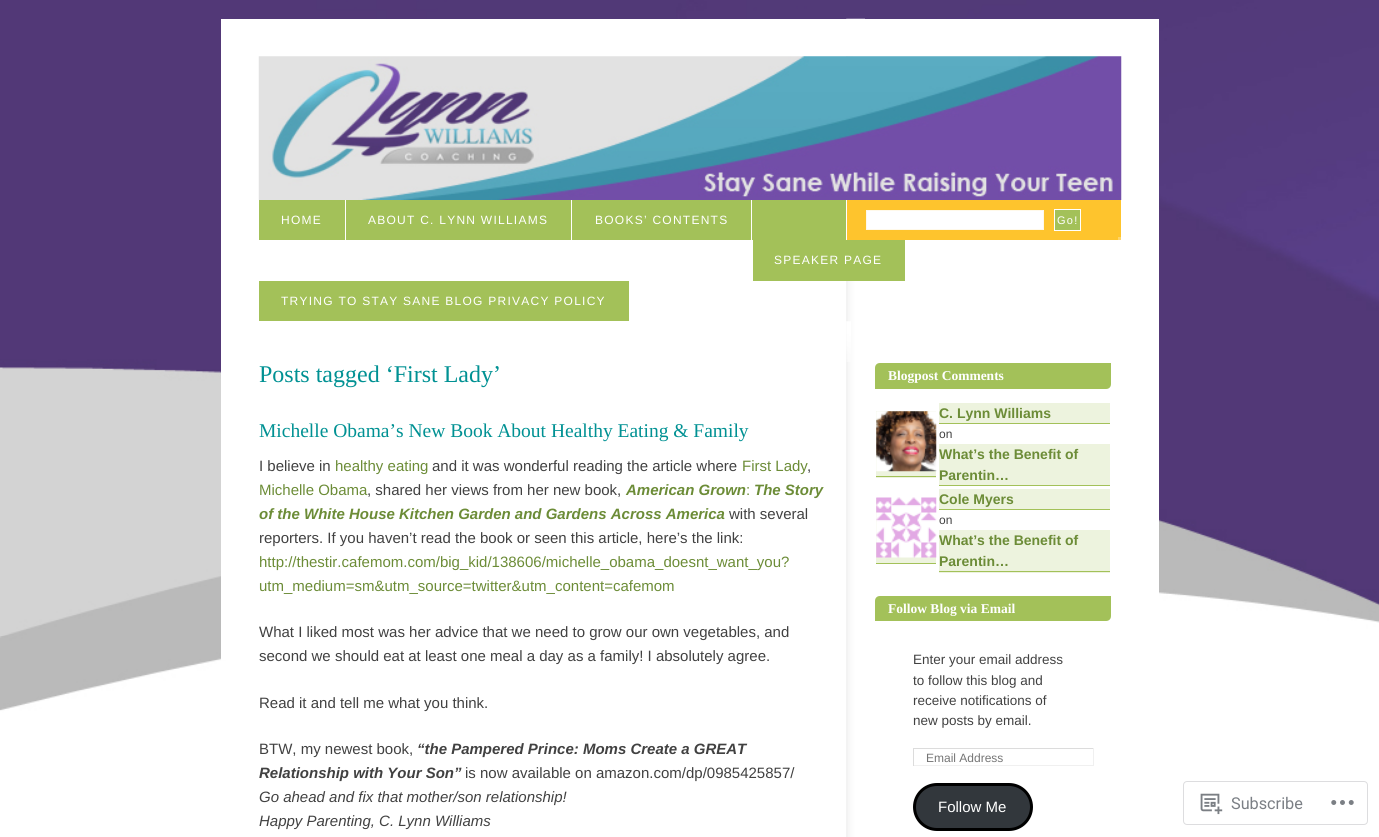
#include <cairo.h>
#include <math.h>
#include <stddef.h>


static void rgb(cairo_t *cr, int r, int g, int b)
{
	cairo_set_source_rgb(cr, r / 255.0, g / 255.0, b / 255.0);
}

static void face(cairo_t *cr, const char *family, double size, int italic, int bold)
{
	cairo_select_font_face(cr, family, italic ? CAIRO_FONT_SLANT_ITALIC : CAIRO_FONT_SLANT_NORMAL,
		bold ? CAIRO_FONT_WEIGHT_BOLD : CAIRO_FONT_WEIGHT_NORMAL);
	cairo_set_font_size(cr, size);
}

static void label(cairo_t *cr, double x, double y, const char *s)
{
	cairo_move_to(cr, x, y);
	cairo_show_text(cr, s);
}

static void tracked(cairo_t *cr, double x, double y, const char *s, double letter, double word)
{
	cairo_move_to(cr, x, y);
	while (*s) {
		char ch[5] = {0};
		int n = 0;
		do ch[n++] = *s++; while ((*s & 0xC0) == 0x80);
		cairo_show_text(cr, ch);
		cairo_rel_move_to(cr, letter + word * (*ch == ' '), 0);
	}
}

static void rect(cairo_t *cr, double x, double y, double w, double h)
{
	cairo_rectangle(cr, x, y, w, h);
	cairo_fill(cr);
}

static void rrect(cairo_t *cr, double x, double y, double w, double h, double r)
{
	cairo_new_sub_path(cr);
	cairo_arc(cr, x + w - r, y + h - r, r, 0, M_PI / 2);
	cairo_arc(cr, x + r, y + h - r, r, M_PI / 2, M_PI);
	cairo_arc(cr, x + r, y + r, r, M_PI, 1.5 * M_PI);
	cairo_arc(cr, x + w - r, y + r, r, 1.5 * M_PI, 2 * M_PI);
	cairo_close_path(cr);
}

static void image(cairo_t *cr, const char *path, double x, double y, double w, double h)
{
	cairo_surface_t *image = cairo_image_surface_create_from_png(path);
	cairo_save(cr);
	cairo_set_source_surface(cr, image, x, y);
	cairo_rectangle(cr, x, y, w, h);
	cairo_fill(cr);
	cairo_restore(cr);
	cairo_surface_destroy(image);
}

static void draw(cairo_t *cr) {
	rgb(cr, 255, 255, 255);
	cairo_paint(cr);
	image(cr, "image0.png", 0, 0, 1379, 837);
	rgb(cr, 255, 255, 255);
	rect(cr, 221, 56, 938, 604);
	image(cr, "image1.png", 846, 18, 19, 819);
	rect(cr, 221, 19, 938, 37);
	image(cr, "image2.png", 258, 56, 864, 144);
	rgb(cr, 163, 193, 89);
	rect(cr, 259, 200, 587, 40);
	rgb(cr, 255, 255, 255);
	rect(cr, 345, 200, 1, 40);
	face(cr, "Liberation Sans", 12, 0, 0);
	tracked(cr, 281, 224, "HOME", 1.25, 0);
	rect(cr, 571, 200, 1, 40);
	tracked(cr, 368, 224, "ABOUT C. LYNN WILLIAMS", 1.25, 0);
	rect(cr, 751, 200, 1, 40);
	tracked(cr, 595, 224, "BOOKS’ CONTENTS", 1.25, 0);
	rgb(cr, 163, 193, 89);
	rect(cr, 753, 240, 152, 41);
	rgb(cr, 255, 255, 255);
	tracked(cr, 774, 264, "SPEAKER PAGE", 1.25, 0);
	rgb(cr, 163, 193, 89);
	rect(cr, 259, 281, 370, 40);
	rgb(cr, 255, 255, 255);
	tracked(cr, 281, 305, "TRYING TO STAY SANE BLOG PRIVACY POLICY", 1.25, 0);
	rgb(cr, 254, 196, 45);
	rect(cr, 847, 200, 274, 40);
	rgb(cr, 254, 213, 106);
	rect(cr, 1118, 237, 3, 3);
	rgb(cr, 255, 255, 255);
	rect(cr, 846, 200, 1, 40);
	cairo_rectangle(cr, 866.5, 210.5, 177, 19);
	cairo_fill_preserve(cr);
	rgb(cr, 255, 249, 234);
	cairo_set_line_width(cr, 1);
	cairo_stroke(cr);
	rgb(cr, 163, 193, 89);
	cairo_rectangle(cr, 1054.5, 209.5, 26, 21);
	cairo_fill_preserve(cr);
	rgb(cr, 255, 255, 255);
	cairo_stroke(cr);
	face(cr, "Liberation Sans", 11, 0, 0);
	tracked(cr, 1057, 224, "Go!", 1.25, 0);
	face(cr, "Liberation Serif", 24, 0, 0);
	rgb(cr, 0, 145, 147);
	label(cr, 259, 382, "Posts tagged ‘First Lady’");
	face(cr, "Liberation Serif", 19.5, 0, 0);
	label(cr, 259, 437, "Michelle Obama’s New Book About Healthy Eating & Family");
	face(cr, "Liberation Sans", 15, 0, 0);
	rgb(cr, 65, 65, 65);
	label(cr, 259, 471, "I believe in");
	rgb(cr, 108, 140, 55);
	label(cr, 335, 471, "healthy eating");
	rgb(cr, 65, 65, 65);
	label(cr, 432, 471, "and it was wonderful reading the article where");
	rgb(cr, 108, 140, 55);
	label(cr, 742, 471, "First Lady");
	rgb(cr, 65, 65, 65);
	label(cr, 807, 471, ",");
	rgb(cr, 108, 140, 55);
	label(cr, 259, 495, "Michelle Obama");
	rgb(cr, 65, 65, 65);
	label(cr, 367, 495, ", shared her views from her new book,");
	face(cr, "Liberation Sans", 15, 1, 1);
	rgb(cr, 108, 140, 55);
	label(cr, 626, 495, "American Grown");
	face(cr, "Liberation Sans", 15, 0, 0);
	label(cr, 746, 495, ":");
	face(cr, "Liberation Sans", 15, 1, 1);
	label(cr, 754, 495, "The Story");
	label(cr, 259, 519, "of the White House Kitchen Garden and Gardens Across America");
	face(cr, "Liberation Sans", 15, 0, 0);
	rgb(cr, 65, 65, 65);
	label(cr, 729, 519, "with several");
	label(cr, 259, 543, "reporters. If you haven’t read the book or seen this article, here’s the link:");
	rgb(cr, 108, 140, 55);
	label(cr, 259, 567, "http://thestir.cafemom.com/big_kid/138606/michelle_obama_doesnt_want_you?");
	label(cr, 259, 591, "utm_medium=sm&utm_source=twitter&utm_content=cafemom");
	rgb(cr, 65, 65, 65);
	label(cr, 259, 637, "What I liked most was her advice that we need to grow our own vegetables, and");
	label(cr, 259, 661, "second we should eat at least one meal a day as a family! I absolutely agree.");
	label(cr, 259, 708, "Read it and tell me what you think.");
	label(cr, 259, 754, "BTW, my newest book,");
	face(cr, "Liberation Sans", 15, 1, 1);
	label(cr, 417, 754, "“the Pampered Prince: Moms Create a GREAT");
	label(cr, 259, 778, "Relationship with Your Son”");
	face(cr, "Liberation Sans", 15, 0, 0);
	label(cr, 465, 778, "is now available on amazon.com/dp/0985425857/");
	face(cr, "Liberation Sans", 15, 1, 0);
	label(cr, 259, 802, "Go ahead and fix that mother/son relationship!");
	label(cr, 259, 826, "Happy Parenting, C. Lynn Williams");
	image(cr, "image3.png", 846, 321, 5, 41);
	rgb(cr, 163, 193, 89);
	cairo_new_path(cr);
	cairo_move_to(cr, 880, 363);
	cairo_line_to(cr, 1111, 363);
	cairo_line_to(cr, 1111, 384);
	cairo_curve_to(cr, 1111, 387, 1109, 389, 1106, 389);
	cairo_line_to(cr, 875, 389);
	cairo_line_to(cr, 875, 368);
	cairo_curve_to(cr, 875, 365, 877, 363, 880, 363);
	cairo_close_path(cr);
	cairo_fill(cr);
	face(cr, "Liberation Serif", 13.5, 0, 1);
	rgb(cr, 255, 255, 255);
	label(cr, 888, 380, "Blogpost Comments");
	rgb(cr, 237, 243, 222);
	rect(cr, 876, 411, 60, 67);
	rgb(cr, 163, 193, 89);
	rect(cr, 876, 476, 60, 1);
	image(cr, "image4.png", 876, 411, 61, 61);
	rgb(cr, 237, 243, 222);
	rect(cr, 939, 403, 171, 20);
	rgb(cr, 163, 193, 89);
	rect(cr, 939, 423, 171, 1);
	face(cr, "Liberation Sans", 14, 0, 1);
	rgb(cr, 108, 140, 55);
	label(cr, 939, 418, "C. Lynn Williams");
	face(cr, "Liberation Sans", 12, 0, 0);
	rgb(cr, 65, 65, 65);
	label(cr, 939, 438, "on");
	rgb(cr, 237, 243, 222);
	rect(cr, 939, 444, 171, 41);
	rgb(cr, 163, 193, 89);
	rect(cr, 939, 485, 171, 1);
	face(cr, "Liberation Sans", 14, 0, 1);
	rgb(cr, 108, 140, 55);
	label(cr, 939, 459, "What’s the Benefit of");
	label(cr, 939, 480, "Parentin…");
	rgb(cr, 237, 243, 222);
	rect(cr, 876, 498, 60, 65);
	rgb(cr, 163, 193, 89);
	rect(cr, 876, 563, 60, 1);
	image(cr, "image5.png", 876, 497, 61, 61);
	rgb(cr, 237, 243, 222);
	rect(cr, 939, 489, 171, 20);
	rgb(cr, 163, 193, 89);
	rect(cr, 939, 509, 171, 1);
	rgb(cr, 108, 140, 55);
	label(cr, 939, 504, "Cole Myers");
	face(cr, "Liberation Sans", 12, 0, 0);
	rgb(cr, 65, 65, 65);
	label(cr, 939, 524, "on");
	rgb(cr, 237, 243, 222);
	rect(cr, 939, 530, 171, 43);
	rgb(cr, 163, 193, 89);
	rect(cr, 939, 571, 171, 1);
	face(cr, "Liberation Sans", 14, 0, 1);
	rgb(cr, 108, 140, 55);
	label(cr, 939, 545, "What’s the Benefit of");
	label(cr, 939, 566, "Parentin…");
	rgb(cr, 163, 193, 89);
	cairo_new_path(cr);
	cairo_move_to(cr, 880, 596);
	cairo_line_to(cr, 1111, 596);
	cairo_line_to(cr, 1111, 616);
	cairo_curve_to(cr, 1111, 619, 1109, 621, 1106, 621);
	cairo_line_to(cr, 875, 621);
	cairo_line_to(cr, 875, 601);
	cairo_curve_to(cr, 875, 598, 877, 596, 880, 596);
	cairo_close_path(cr);
	cairo_fill(cr);
	face(cr, "Liberation Serif", 13.5, 0, 1);
	rgb(cr, 255, 255, 255);
	label(cr, 888, 613, "Follow Blog via Email");
	face(cr, "Liberation Sans", 13.5, 0, 0);
	rgb(cr, 65, 65, 65);
	label(cr, 913, 664, "Enter your email address");
	label(cr, 913, 685, "to follow this blog and");
	label(cr, 913, 705, "receive notifications of");
	label(cr, 913, 725, "new posts by email.");
	rgb(cr, 220, 220, 220);
	rect(cr, 913, 748, 181, 1);
	rgb(cr, 240, 240, 240);
	rect(cr, 1093, 748, 1, 18);
	rect(cr, 913, 765, 181, 1);
	rgb(cr, 220, 220, 220);
	rect(cr, 913, 748, 1, 18);
	face(cr, "Liberation Sans", 12, 0, 0);
	rgb(cr, 117, 117, 117);
	label(cr, 926, 762, "Email Address");
	rgb(cr, 50, 55, 60);
	rrect(cr, 914.5, 784.5, 117, 45, 22.5);
	cairo_fill_preserve(cr);
	rgb(cr, 0, 0, 0);
	cairo_set_line_width(cr, 3);
	cairo_stroke(cr);
	face(cr, "Liberation Sans", 15, 0, 0);
	rgb(cr, 255, 255, 255);
	label(cr, 938, 812, "Follow Me");
	rrect(cr, 1183.5, 781.5, 184, 43, 3.5);
	rgb(cr, 221, 221, 223);
	cairo_set_line_width(cr, 1);
	cairo_stroke(cr);
	image(cr, "image6.png", 1200, 793, 23, 22);
	face(cr, "Roboto", 16.25, 0, 0);
	rgb(cr, 123, 127, 133);
	label(cr, 1231, 809, "Subscribe");
	image(cr, "image7.png", 1331, 800, 23, 5);
}

int main(void) {
	cairo_surface_t *surface = cairo_image_surface_create(CAIRO_FORMAT_RGB24, 1379, 837);
	cairo_t *cr = cairo_create(surface);
	cairo_font_options_t *options = cairo_font_options_create();
	cairo_font_options_set_hint_metrics(options, CAIRO_HINT_METRICS_OFF);
	cairo_font_options_set_hint_style(options, CAIRO_HINT_STYLE_NONE);
	cairo_set_font_options(cr, options);
	cairo_set_miter_limit(cr, 4);
	draw(cr);
	cairo_surface_write_to_png(surface, "render.png");
	cairo_font_options_destroy(options);
	cairo_destroy(cr);
	cairo_surface_destroy(surface);
	return 0;
}
